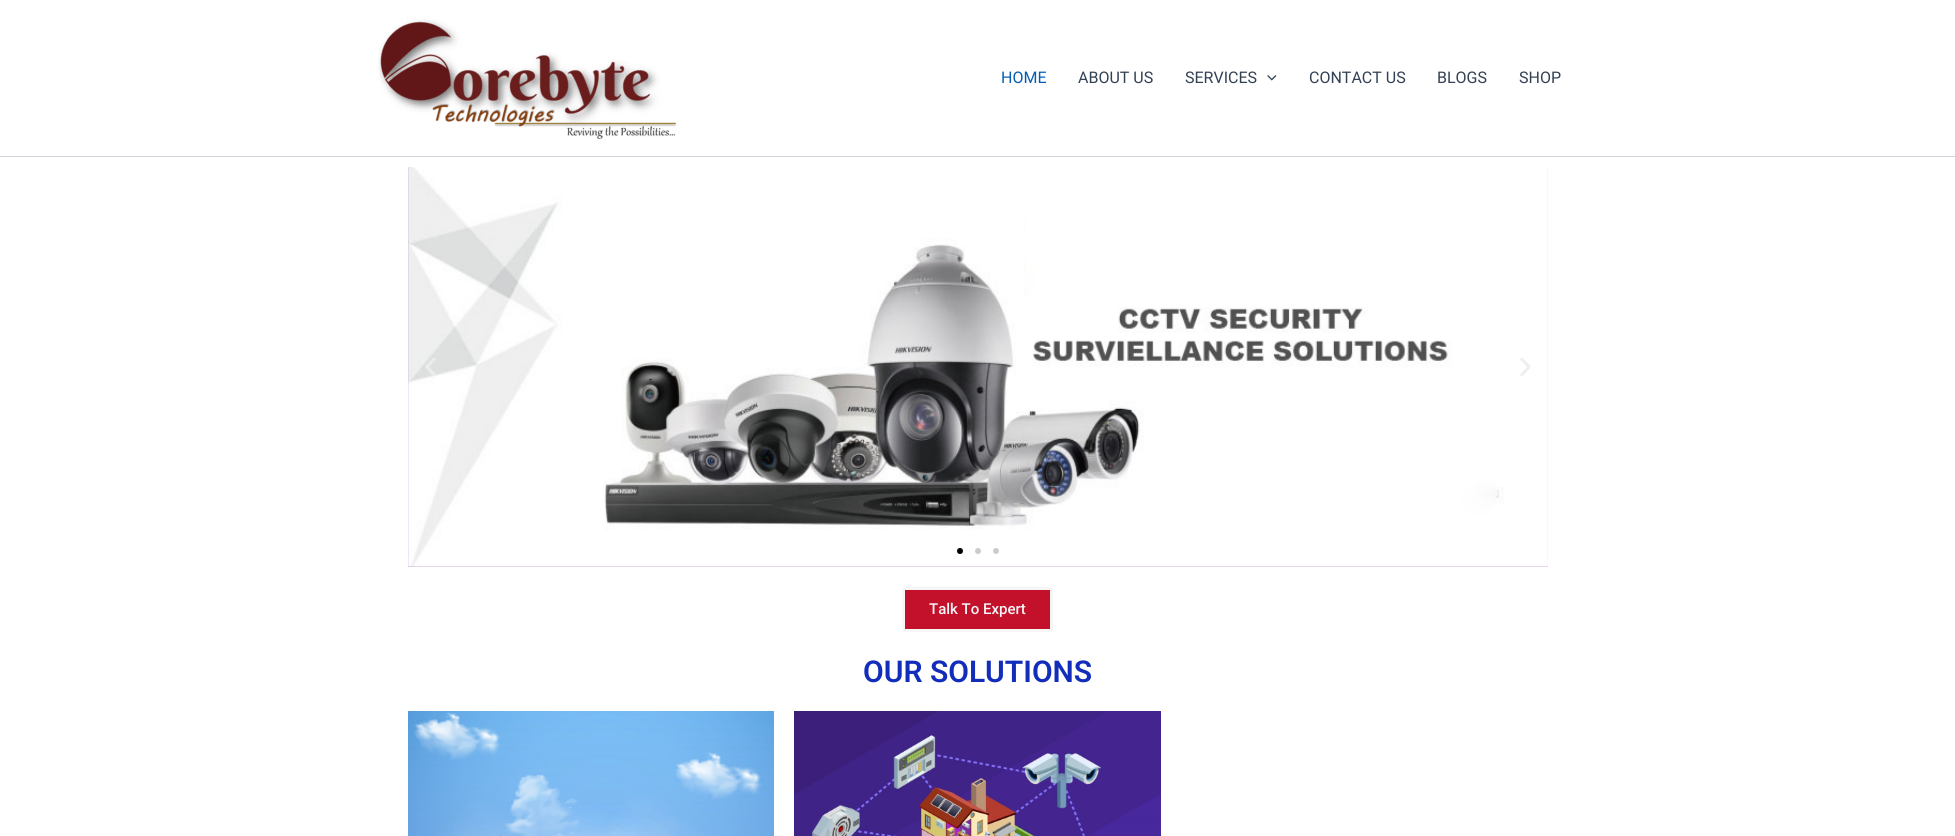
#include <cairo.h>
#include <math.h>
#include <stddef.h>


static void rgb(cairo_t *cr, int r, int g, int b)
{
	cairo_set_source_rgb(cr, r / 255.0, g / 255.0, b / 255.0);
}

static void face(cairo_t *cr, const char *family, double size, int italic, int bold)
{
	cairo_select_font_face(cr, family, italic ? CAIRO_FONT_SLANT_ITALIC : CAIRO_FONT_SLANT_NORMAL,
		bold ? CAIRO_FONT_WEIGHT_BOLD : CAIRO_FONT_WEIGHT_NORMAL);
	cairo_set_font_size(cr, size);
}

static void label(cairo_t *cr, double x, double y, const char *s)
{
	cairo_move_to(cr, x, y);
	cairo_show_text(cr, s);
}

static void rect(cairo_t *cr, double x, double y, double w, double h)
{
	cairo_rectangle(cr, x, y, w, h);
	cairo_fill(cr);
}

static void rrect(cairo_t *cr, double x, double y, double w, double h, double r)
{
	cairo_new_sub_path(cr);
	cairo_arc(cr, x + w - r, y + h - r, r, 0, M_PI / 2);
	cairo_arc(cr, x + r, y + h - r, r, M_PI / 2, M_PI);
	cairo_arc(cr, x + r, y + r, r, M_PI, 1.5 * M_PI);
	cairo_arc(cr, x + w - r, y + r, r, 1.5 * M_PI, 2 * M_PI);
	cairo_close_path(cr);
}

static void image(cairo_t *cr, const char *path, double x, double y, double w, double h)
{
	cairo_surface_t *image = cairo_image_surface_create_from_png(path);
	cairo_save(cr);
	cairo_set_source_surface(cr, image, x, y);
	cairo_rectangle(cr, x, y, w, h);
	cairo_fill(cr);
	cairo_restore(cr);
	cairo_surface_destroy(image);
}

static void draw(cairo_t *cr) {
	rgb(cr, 255, 255, 255);
	cairo_paint(cr);
	rgb(cr, 209, 213, 219);
	rect(cr, 0, 156, 1955, 1);
	image(cr, "image0.png", 378, 19, 299, 121);
	face(cr, "Roboto", 16, 0, 0);
	rgb(cr, 4, 92, 180);
	label(cr, 1001, 83, "HOME");
	rgb(cr, 51, 65, 85);
	label(cr, 1078, 83, "ABOUT US");
	label(cr, 1185, 83, "SERVICES");
	image(cr, "image1.png", 1267, 75, 10, 6);
	label(cr, 1309, 83, "CONTACT US");
	label(cr, 1437, 83, "BLOGS");
	label(cr, 1519, 83, "SHOP");
	rgb(cr, 131, 60, 163);
	rect(cr, 408, 167, 1140, 400);
	image(cr, "image2.png", 408, 167, 1140, 400);
	image(cr, "image3.png", 425, 358, 11, 19);
	image(cr, "image4.png", 1520, 357, 11, 20);
	rgb(cr, 0, 0, 0);
	cairo_arc(cr, 960, 551, 3, 0, 2 * M_PI);
	cairo_fill(cr);
	rgb(cr, 204, 204, 204);
	cairo_arc(cr, 978, 551, 3, 0, 2 * M_PI);
	cairo_fill(cr);
	cairo_arc(cr, 996, 551, 3, 0, 2 * M_PI);
	cairo_fill(cr);
	rgb(cr, 196, 17, 43);
	rrect(cr, 903.5, 588.5, 148, 42, 1.5);
	cairo_fill_preserve(cr);
	rgb(cr, 247, 246, 246);
	cairo_set_line_width(cr, 3);
	cairo_stroke(cr);
	face(cr, "Roboto Medium", 15, 0, 0);
	label(cr, 929, 614, "Talk To Expert");
	face(cr, "Roboto SemiBold", 30, 0, 0);
	rgb(cr, 19, 45, 187);
	label(cr, 863, 682, "OUR SOLUTIONS");
	image(cr, "image5.png", 408, 711, 366, 125);
	image(cr, "image6.png", 794, 711, 367, 125);
}

int main(void) {
	cairo_surface_t *surface = cairo_image_surface_create(CAIRO_FORMAT_RGB24, 1955, 836);
	cairo_t *cr = cairo_create(surface);
	cairo_font_options_t *options = cairo_font_options_create();
	cairo_font_options_set_hint_metrics(options, CAIRO_HINT_METRICS_OFF);
	cairo_font_options_set_hint_style(options, CAIRO_HINT_STYLE_NONE);
	cairo_set_font_options(cr, options);
	cairo_set_miter_limit(cr, 4);
	draw(cr);
	cairo_surface_write_to_png(surface, "render.png");
	cairo_font_options_destroy(options);
	cairo_destroy(cr);
	cairo_surface_destroy(surface);
	return 0;
}
